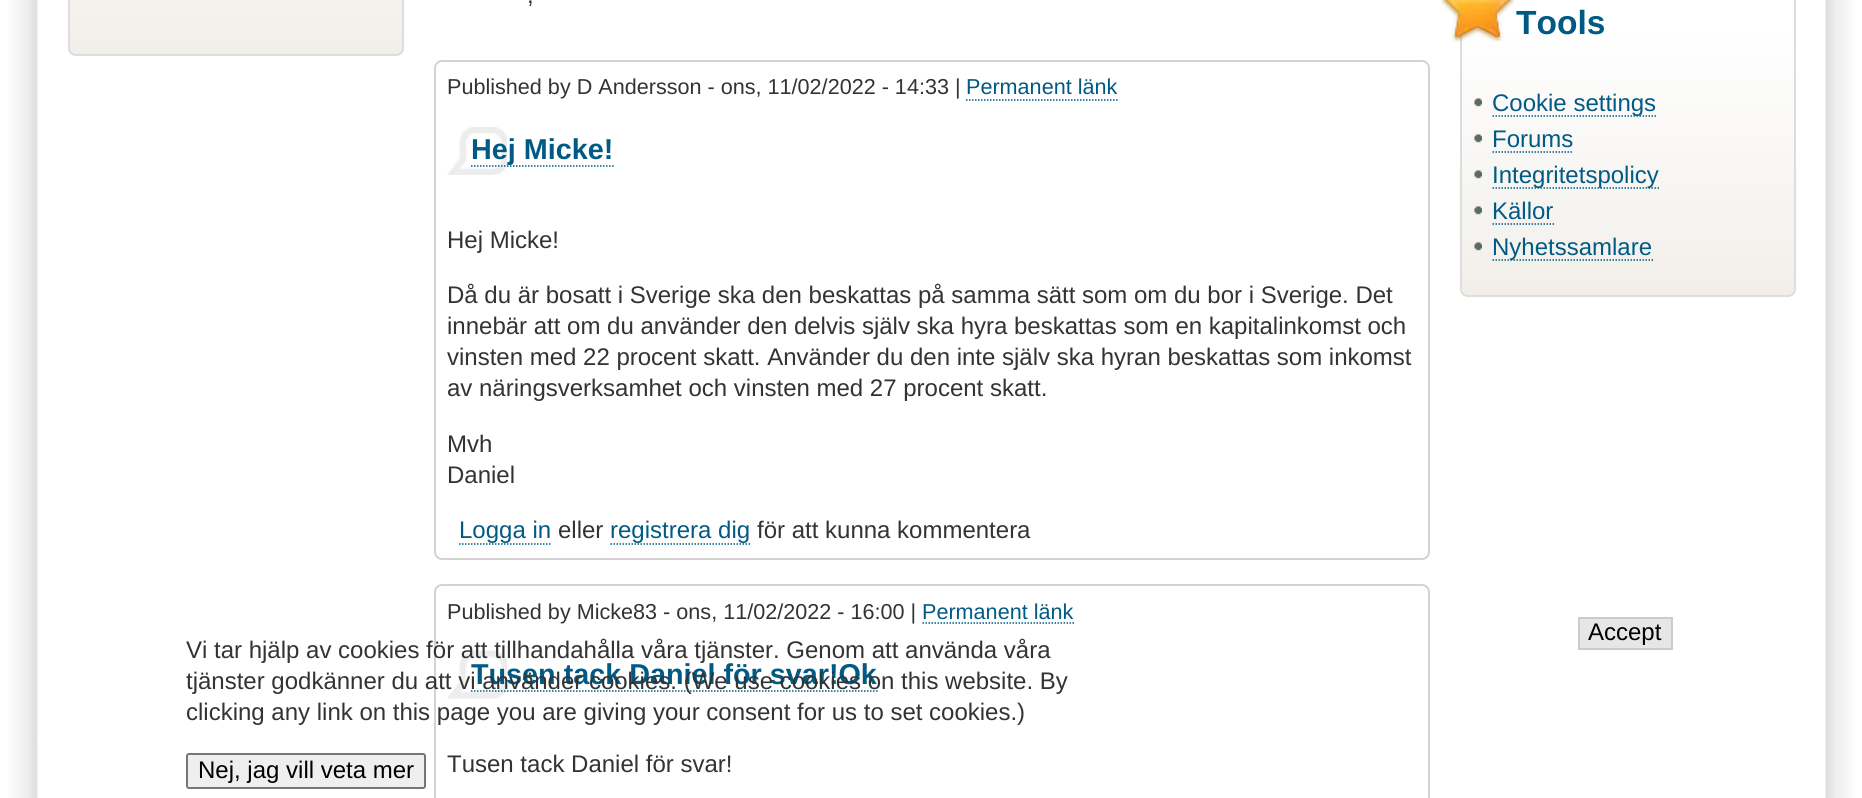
#include <cairo.h>
#include <math.h>
#include <stddef.h>


static void rgb(cairo_t *cr, int r, int g, int b)
{
	cairo_set_source_rgb(cr, r / 255.0, g / 255.0, b / 255.0);
}

static void face(cairo_t *cr, const char *family, double size, int italic, int bold)
{
	cairo_select_font_face(cr, family, italic ? CAIRO_FONT_SLANT_ITALIC : CAIRO_FONT_SLANT_NORMAL,
		bold ? CAIRO_FONT_WEIGHT_BOLD : CAIRO_FONT_WEIGHT_NORMAL);
	cairo_set_font_size(cr, size);
}

static void label(cairo_t *cr, double x, double y, const char *s)
{
	cairo_move_to(cr, x, y);
	cairo_show_text(cr, s);
}

static void rect(cairo_t *cr, double x, double y, double w, double h)
{
	cairo_rectangle(cr, x, y, w, h);
	cairo_fill(cr);
}

static void rrect(cairo_t *cr, double x, double y, double w, double h, double r)
{
	cairo_new_sub_path(cr);
	cairo_arc(cr, x + w - r, y + h - r, r, 0, M_PI / 2);
	cairo_arc(cr, x + r, y + h - r, r, M_PI / 2, M_PI);
	cairo_arc(cr, x + r, y + r, r, M_PI, 1.5 * M_PI);
	cairo_arc(cr, x + w - r, y + r, r, 1.5 * M_PI, 2 * M_PI);
	cairo_close_path(cr);
}

static void image(cairo_t *cr, const char *path, double x, double y, double w, double h)
{
	cairo_surface_t *image = cairo_image_surface_create_from_png(path);
	cairo_save(cr);
	cairo_set_source_surface(cr, image, x, y);
	cairo_rectangle(cr, x, y, w, h);
	cairo_fill(cr);
	cairo_restore(cr);
	cairo_surface_destroy(image);
}

static void draw(cairo_t *cr) {
	cairo_pattern_t *gradient;
	rgb(cr, 255, 255, 255);
	cairo_paint(cr);
	image(cr, "image0.png", 8, 0, 30, 798);
	image(cr, "image1.png", 1825, 0, 30, 798);
	cairo_save(cr);
	rrect(cr, 68, -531, 336, 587, 8);
	cairo_clip(cr);
	gradient = cairo_pattern_create_linear(236, 54, 236, -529);
	cairo_pattern_add_color_stop_rgba(gradient, 0, 0.949, 0.937, 0.918, 1);
	cairo_pattern_add_color_stop_rgba(gradient, 0.46, 1, 1, 1, 1);
	cairo_set_source(cr, gradient);
	cairo_pattern_destroy(gradient);
	rect(cr, 68, 0, 336, 54);
	cairo_restore(cr);
	rrect(cr, 69, -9, 334, 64, 7);
	rgb(cr, 221, 221, 221);
	cairo_stroke(cr);
	face(cr, "Liberation Sans", 24, 0, 0);
	rgb(cr, 51, 51, 51);
	label(cr, 527, 3, ",");
	rrect(cr, 435, 61, 994, 498, 7);
	rgb(cr, 211, 211, 211);
	cairo_stroke(cr);
	face(cr, "Liberation Sans", 21.6, 0, 0);
	rgb(cr, 51, 51, 51);
	label(cr, 447, 94, "Published by D Andersson - ons, 11/02/2022 - 14:33 |");
	rgb(cr, 0, 90, 132);
	label(cr, 966, 94, "Permanent länk");
	cairo_new_path(cr);
	cairo_move_to(cr, 966, 100);
	cairo_line_to(cr, 1117.5, 100);
	cairo_set_line_width(cr, 1.5);
	cairo_set_dash(cr, (double[]){1.5, 1.5}, 2, 0);
	cairo_stroke(cr);
	image(cr, "image2.png", 447, 127, 60, 48);
	face(cr, "Liberation Sans", 28.75, 0, 1);
	label(cr, 471, 159, "Hej Micke!");
	cairo_new_path(cr);
	cairo_move_to(cr, 471, 166);
	cairo_line_to(cr, 613.5, 166);
	cairo_stroke(cr);
	face(cr, "Liberation Sans", 24, 0, 0);
	rgb(cr, 51, 51, 51);
	label(cr, 447, 248, "Hej Micke!");
	label(cr, 447, 303, "Då du är bosatt i Sverige ska den beskattas på samma sätt som om du bor i Sverige. Det");
	label(cr, 447, 334, "innebär att om du använder den delvis själv ska hyra beskattas som en kapitalinkomst och");
	label(cr, 447, 365, "vinsten med 22 procent skatt. Använder du den inte själv ska hyran beskattas som inkomst");
	label(cr, 447, 396, "av näringsverksamhet och vinsten med 27 procent skatt.");
	label(cr, 447, 452, "Mvh");
	label(cr, 447, 483, "Daniel");
	rgb(cr, 0, 90, 132);
	label(cr, 459, 538, "Logga in");
	cairo_new_path(cr);
	cairo_move_to(cr, 459, 544);
	cairo_line_to(cr, 552, 544);
	cairo_stroke(cr);
	rgb(cr, 51, 51, 51);
	label(cr, 558, 538, "eller");
	rgb(cr, 0, 90, 132);
	label(cr, 610, 538, "registrera dig");
	cairo_new_path(cr);
	cairo_move_to(cr, 610.5, 544);
	cairo_line_to(cr, 750, 544);
	cairo_stroke(cr);
	rgb(cr, 51, 51, 51);
	label(cr, 757, 538, "för att kunna kommentera");
	rrect(cr, 435, 585, 994, 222, 7);
	rgb(cr, 211, 211, 211);
	cairo_set_line_width(cr, 2);
	cairo_set_dash(cr, NULL, 0, 0);
	cairo_stroke(cr);
	face(cr, "Liberation Sans", 21.6, 0, 0);
	rgb(cr, 51, 51, 51);
	label(cr, 447, 619, "Published by Micke83 - ons, 11/02/2022 - 16:00 |");
	rgb(cr, 0, 90, 132);
	label(cr, 922, 619, "Permanent länk");
	cairo_new_path(cr);
	cairo_move_to(cr, 922.5, 623);
	cairo_line_to(cr, 1074, 623);
	cairo_set_line_width(cr, 1.5);
	cairo_set_dash(cr, (double[]){1.5, 1.5}, 2, 0);
	cairo_stroke(cr);
	image(cr, "image3.png", 447, 650, 60, 49);
	face(cr, "Liberation Sans", 28.75, 0, 1);
	label(cr, 471, 684, "Tusen tack Daniel för svar!Ok");
	cairo_new_path(cr);
	cairo_move_to(cr, 471, 691);
	cairo_line_to(cr, 877.5, 691);
	cairo_stroke(cr);
	face(cr, "Liberation Sans", 24, 0, 0);
	rgb(cr, 51, 51, 51);
	label(cr, 447, 772, "Tusen tack Daniel för svar!");
	cairo_save(cr);
	rrect(cr, 1460, -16, 336, 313, 8);
	cairo_clip(cr);
	gradient = cairo_pattern_create_linear(1628, 296, 1628, -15);
	cairo_pattern_add_color_stop_rgba(gradient, 0, 0.949, 0.937, 0.918, 1);
	cairo_pattern_add_color_stop_rgba(gradient, 0.87, 1, 1, 1, 1);
	cairo_set_source(cr, gradient);
	cairo_pattern_destroy(gradient);
	rect(cr, 1460, 0, 336, 296);
	cairo_restore(cr);
	rrect(cr, 1461, -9, 334, 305, 7);
	rgb(cr, 221, 221, 221);
	cairo_set_line_width(cr, 2);
	cairo_set_dash(cr, NULL, 0, 0);
	cairo_stroke(cr);
	image(cr, "image4.png", 1441, 0, 73, 42);
	face(cr, "Liberation Sans", 33.5, 0, 1);
	rgb(cr, 0, 90, 132);
	label(cr, 1516, 34, "Tools");
	image(cr, "image5.png", 1474, 98, 8, 9);
	cairo_new_path(cr);
	cairo_move_to(cr, 1492.5, 116);
	cairo_line_to(cr, 1656, 116);
	cairo_set_line_width(cr, 1.5);
	cairo_set_dash(cr, (double[]){1.5, 1.5}, 2, 0);
	cairo_stroke(cr);
	face(cr, "Liberation Sans", 24, 0, 0);
	label(cr, 1492, 111, "Cookie settings");
	image(cr, "image6.png", 1474, 134, 8, 9);
	label(cr, 1492, 147, "Forums");
	cairo_new_path(cr);
	cairo_move_to(cr, 1492.5, 152);
	cairo_line_to(cr, 1573.5, 152);
	cairo_stroke(cr);
	image(cr, "image7.png", 1474, 170, 8, 9);
	cairo_new_path(cr);
	cairo_move_to(cr, 1492.5, 188);
	cairo_line_to(cr, 1659, 188);
	cairo_stroke(cr);
	label(cr, 1492, 183, "Integritetspolicy");
	image(cr, "image8.png", 1474, 206, 8, 9);
	label(cr, 1492, 219, "Källor");
	cairo_new_path(cr);
	cairo_move_to(cr, 1492.5, 224);
	cairo_line_to(cr, 1554, 224);
	cairo_stroke(cr);
	image(cr, "image9.png", 1474, 242, 8, 9);
	cairo_new_path(cr);
	cairo_move_to(cr, 1492.5, 260);
	cairo_line_to(cr, 1653, 260);
	cairo_stroke(cr);
	label(cr, 1492, 255, "Nyhetssamlare");
	rgb(cr, 230, 230, 230);
	cairo_rectangle(cr, 1579, 618, 93, 31);
	cairo_fill_preserve(cr);
	rgb(cr, 204, 204, 204);
	cairo_set_line_width(cr, 2);
	cairo_set_dash(cr, NULL, 0, 0);
	cairo_stroke(cr);
	rgb(cr, 0, 0, 0);
	label(cr, 1588, 640, "Accept");
	rgb(cr, 51, 51, 51);
	label(cr, 186, 658, "Vi tar hjälp av cookies för att tillhandahålla våra tjänster. Genom att använda våra");
	label(cr, 186, 689, "tjänster godkänner du att vi använder cookies. (We use cookies on this website. By");
	label(cr, 186, 720, "clicking any link on this page you are giving your consent for us to set cookies.)");
	rgb(cr, 239, 239, 239);
	rrect(cr, 187, 754, 238, 34, 2);
	cairo_fill_preserve(cr);
	rgb(cr, 118, 118, 118);
	cairo_stroke(cr);
	rgb(cr, 0, 0, 0);
	label(cr, 198, 778, "Nej, jag vill veta mer");
}

int main(void) {
	cairo_surface_t *surface = cairo_image_surface_create(CAIRO_FORMAT_RGB24, 1862, 798);
	cairo_t *cr = cairo_create(surface);
	cairo_font_options_t *options = cairo_font_options_create();
	cairo_font_options_set_hint_metrics(options, CAIRO_HINT_METRICS_OFF);
	cairo_font_options_set_hint_style(options, CAIRO_HINT_STYLE_NONE);
	cairo_set_font_options(cr, options);
	cairo_set_miter_limit(cr, 4);
	draw(cr);
	cairo_surface_write_to_png(surface, "render.png");
	cairo_font_options_destroy(options);
	cairo_destroy(cr);
	cairo_surface_destroy(surface);
	return 0;
}
